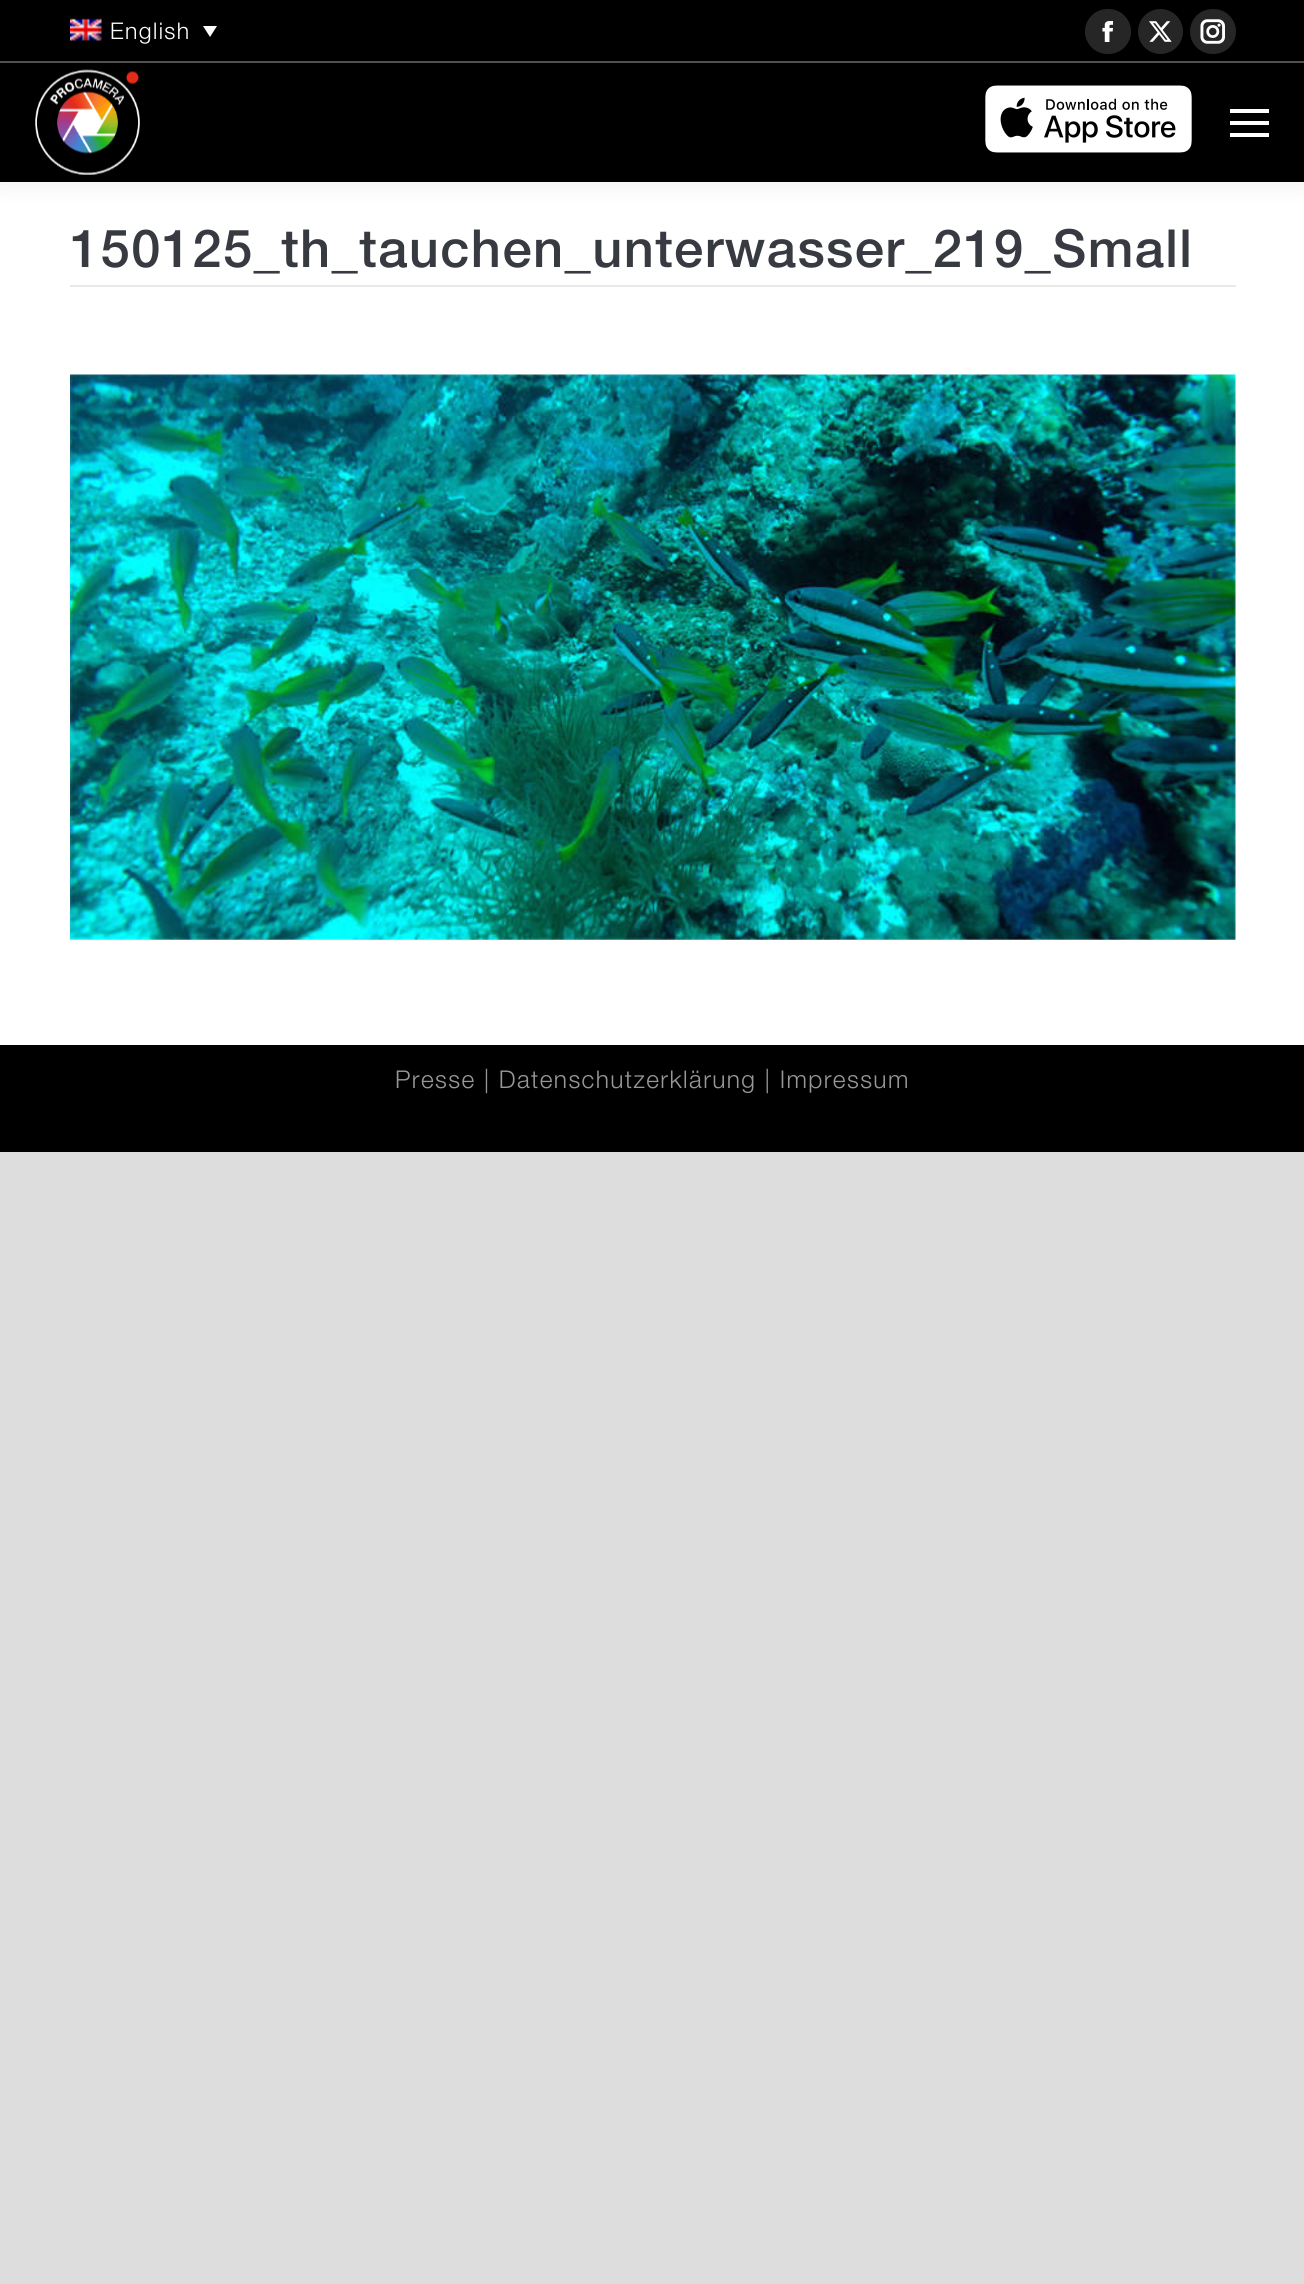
#include <cairo.h>
#include <math.h>
#include <stddef.h>


static void rgb(cairo_t *cr, int r, int g, int b)
{
	cairo_set_source_rgb(cr, r / 255.0, g / 255.0, b / 255.0);
}

static void face(cairo_t *cr, const char *family, double size, int italic, int bold)
{
	cairo_select_font_face(cr, family, italic ? CAIRO_FONT_SLANT_ITALIC : CAIRO_FONT_SLANT_NORMAL,
		bold ? CAIRO_FONT_WEIGHT_BOLD : CAIRO_FONT_WEIGHT_NORMAL);
	cairo_set_font_size(cr, size);
}

static void tracked(cairo_t *cr, double x, double y, const char *s, double letter, double word)
{
	cairo_move_to(cr, x, y);
	while (*s) {
		char ch[5] = {0};
		int n = 0;
		do ch[n++] = *s++; while ((*s & 0xC0) == 0x80);
		cairo_show_text(cr, ch);
		cairo_rel_move_to(cr, letter + word * (*ch == ' '), 0);
	}
}

static void rect(cairo_t *cr, double x, double y, double w, double h)
{
	cairo_rectangle(cr, x, y, w, h);
	cairo_fill(cr);
}

static void rrect(cairo_t *cr, double x, double y, double w, double h, double r)
{
	cairo_new_sub_path(cr);
	cairo_arc(cr, x + w - r, y + h - r, r, 0, M_PI / 2);
	cairo_arc(cr, x + r, y + h - r, r, M_PI / 2, M_PI);
	cairo_arc(cr, x + r, y + r, r, M_PI, 1.5 * M_PI);
	cairo_arc(cr, x + w - r, y + r, r, 1.5 * M_PI, 2 * M_PI);
	cairo_close_path(cr);
}

static void soft_shadow(cairo_t *cr, double x, double y, double w, double h, double r, double blur, double alpha)
{
	cairo_push_group_with_content(cr, CAIRO_CONTENT_ALPHA);
	cairo_set_operator(cr, CAIRO_OPERATOR_SOURCE);
	for (int i = 15; i >= -15 && fmin(w, h) + blur * i / 3 > 0; i -= 2) {
		double e = blur * i / 6;
		cairo_set_source_rgba(cr, 0, 0, 0, alpha * erfc((i - 1) / 8.5) / 2);
		rrect(cr, x - e, y - e, w + 2 * e, h + 2 * e, fmax(0, fmin(r + e + blur * .6, fmin(w, h) / 2 + e)));
		cairo_fill(cr);
	}
	cairo_pattern_t *soft = cairo_pop_group(cr);
	cairo_mask(cr, soft);
	cairo_pattern_destroy(soft);
}

static void image(cairo_t *cr, const char *path, double x, double y, double w, double h)
{
	cairo_surface_t *image = cairo_image_surface_create_from_png(path);
	cairo_save(cr);
	cairo_set_source_surface(cr, image, x, y);
	cairo_rectangle(cr, x, y, w, h);
	cairo_fill(cr);
	cairo_restore(cr);
	cairo_surface_destroy(image);
}

static void draw(cairo_t *cr) {
	rgb(cr, 221, 221, 221);
	cairo_paint(cr);
	rgb(cr, 255, 255, 255);
	rect(cr, 0, 182, 1304, 863);
	rgb(cr, 0, 0, 0);
	soft_shadow(cr, -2, -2, 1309, 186, 0, 13, 0.07);
	rgb(cr, 0, 0, 0);
	rect(cr, 0, 0, 1304, 182);
	image(cr, "image0.png", 70, 18, 32, 23);
	face(cr, "Helvetica Light", 23, 0, 0);
	rgb(cr, 255, 255, 255);
	tracked(cr, 110, 39, "English", 1.4, 0);
	cairo_new_path(cr);
	cairo_move_to(cr, 203, 26);
	cairo_line_to(cr, 217, 26);
	cairo_line_to(cr, 210, 37);
	cairo_close_path(cr);
	cairo_fill(cr);
	rgb(cr, 38, 38, 38);
	rrect(cr, 1085, 9, 46, 45, 22.5);
	cairo_fill(cr);
	image(cr, "image1.png", 1102, 21, 12, 21);
	cairo_arc(cr, 1160.5, 31.5, 22.5, 0, 2 * M_PI);
	cairo_fill(cr);
	image(cr, "image2.png", 1149, 21, 23, 21);
	rrect(cr, 1190, 9, 46, 45, 22.5);
	cairo_fill(cr);
	image(cr, "image3.png", 1200, 19, 25, 25);
	rgb(cr, 81, 81, 81);
	rect(cr, 0, 61, 1304, 2);
	image(cr, "image4.png", 35, 69, 105, 106);
	image(cr, "image5.png", 985, 85, 207, 68);
	rgb(cr, 255, 255, 255);
	rect(cr, 1230, 109, 39, 4);
	rect(cr, 1230, 121, 39, 4);
	rect(cr, 1230, 133, 39, 4);
	face(cr, "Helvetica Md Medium", 52.5, 0, 0);
	rgb(cr, 55, 58, 65);
	tracked(cr, 70, 267, "150125_th_tauchen_unterwasser_219_Small", 1.4, 0);
	rgb(cr, 233, 233, 233);
	rect(cr, 70, 285, 1166, 2);
	image(cr, "image6.png", 70, 374, 1166, 566);
	rgb(cr, 0, 0, 0);
	rect(cr, 0, 1045, 1304, 107);
	face(cr, "Helvetica Light", 24.5, 0, 0);
	rgb(cr, 150, 151, 152);
	tracked(cr, 395, 1088, "Presse | Datenschutzerklärung | Impressum", 1.4, 0);
}

int main(void) {
	cairo_surface_t *surface = cairo_image_surface_create(CAIRO_FORMAT_RGB24, 1304, 2284);
	cairo_t *cr = cairo_create(surface);
	cairo_font_options_t *options = cairo_font_options_create();
	cairo_font_options_set_hint_metrics(options, CAIRO_HINT_METRICS_OFF);
	cairo_font_options_set_hint_style(options, CAIRO_HINT_STYLE_NONE);
	cairo_set_font_options(cr, options);
	cairo_set_miter_limit(cr, 4);
	draw(cr);
	cairo_surface_write_to_png(surface, "render.png");
	cairo_font_options_destroy(options);
	cairo_destroy(cr);
	cairo_surface_destroy(surface);
	return 0;
}
